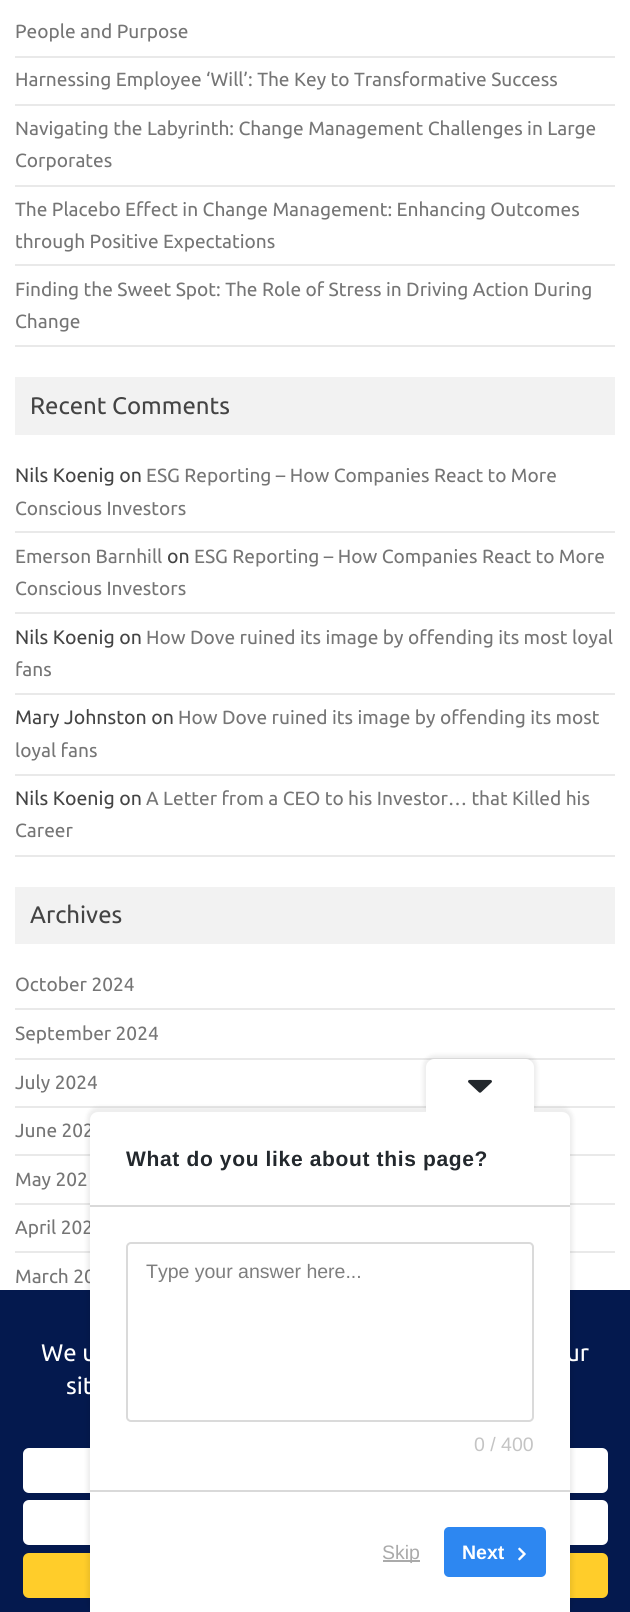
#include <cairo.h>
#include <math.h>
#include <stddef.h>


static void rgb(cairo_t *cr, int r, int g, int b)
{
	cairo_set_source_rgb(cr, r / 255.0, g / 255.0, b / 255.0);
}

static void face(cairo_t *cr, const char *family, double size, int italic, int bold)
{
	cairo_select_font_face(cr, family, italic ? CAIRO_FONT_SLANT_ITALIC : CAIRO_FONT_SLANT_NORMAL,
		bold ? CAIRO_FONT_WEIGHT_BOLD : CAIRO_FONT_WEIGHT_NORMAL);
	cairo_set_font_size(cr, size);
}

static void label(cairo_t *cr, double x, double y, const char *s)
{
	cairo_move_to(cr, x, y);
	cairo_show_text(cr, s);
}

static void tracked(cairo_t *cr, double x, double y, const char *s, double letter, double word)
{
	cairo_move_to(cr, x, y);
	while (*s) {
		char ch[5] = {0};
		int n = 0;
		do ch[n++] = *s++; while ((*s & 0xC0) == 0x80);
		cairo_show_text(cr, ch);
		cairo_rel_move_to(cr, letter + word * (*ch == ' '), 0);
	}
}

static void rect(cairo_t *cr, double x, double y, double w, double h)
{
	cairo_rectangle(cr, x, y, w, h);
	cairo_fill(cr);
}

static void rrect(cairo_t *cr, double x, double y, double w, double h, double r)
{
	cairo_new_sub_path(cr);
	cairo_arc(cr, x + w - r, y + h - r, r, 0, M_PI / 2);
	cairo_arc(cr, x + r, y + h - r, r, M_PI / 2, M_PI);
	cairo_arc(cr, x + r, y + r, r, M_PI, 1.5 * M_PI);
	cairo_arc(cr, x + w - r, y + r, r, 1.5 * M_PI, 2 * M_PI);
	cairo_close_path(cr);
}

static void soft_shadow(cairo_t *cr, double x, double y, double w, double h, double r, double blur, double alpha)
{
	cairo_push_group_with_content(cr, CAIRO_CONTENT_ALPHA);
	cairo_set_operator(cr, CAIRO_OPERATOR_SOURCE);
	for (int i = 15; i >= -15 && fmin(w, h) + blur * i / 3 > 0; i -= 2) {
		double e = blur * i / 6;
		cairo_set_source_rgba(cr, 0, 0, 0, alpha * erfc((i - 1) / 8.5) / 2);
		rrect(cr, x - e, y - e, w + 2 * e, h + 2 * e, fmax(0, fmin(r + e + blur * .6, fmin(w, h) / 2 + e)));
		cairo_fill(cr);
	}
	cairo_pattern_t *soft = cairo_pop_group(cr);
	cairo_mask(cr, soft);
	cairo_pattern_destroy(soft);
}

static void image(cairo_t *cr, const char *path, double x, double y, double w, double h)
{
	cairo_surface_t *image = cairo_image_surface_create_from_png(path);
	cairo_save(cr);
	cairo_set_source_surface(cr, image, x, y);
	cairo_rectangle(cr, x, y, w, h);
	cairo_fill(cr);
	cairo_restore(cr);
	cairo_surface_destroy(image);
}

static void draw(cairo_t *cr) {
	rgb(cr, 255, 255, 255);
	cairo_paint(cr);
	rgb(cr, 233, 233, 233);
	rect(cr, 15, 56, 600, 2);
	face(cr, "Ubuntu", 19.1, 0, 0);
	rgb(cr, 117, 117, 117);
	label(cr, 15, 38, "People and Purpose");
	rgb(cr, 233, 233, 233);
	rect(cr, 15, 104, 600, 2);
	rgb(cr, 117, 117, 117);
	label(cr, 15, 86, "Harnessing Employee ‘Will’: The Key to Transformative Success");
	rgb(cr, 233, 233, 233);
	rect(cr, 15, 185, 600, 2);
	rgb(cr, 117, 117, 117);
	label(cr, 15, 135, "Navigating the Labyrinth: Change Management Challenges in Large");
	label(cr, 15, 167, "Corporates");
	rgb(cr, 233, 233, 233);
	rect(cr, 15, 264, 600, 2);
	rgb(cr, 117, 117, 117);
	label(cr, 15, 216, "The Placebo Effect in Change Management: Enhancing Outcomes");
	label(cr, 15, 248, "through Positive Expectations");
	rgb(cr, 233, 233, 233);
	rect(cr, 15, 345, 600, 2);
	rgb(cr, 117, 117, 117);
	label(cr, 15, 296, "Finding the Sweet Spot: The Role of Stress in Driving Action During");
	label(cr, 15, 328, "Change");
	rgb(cr, 242, 242, 242);
	rect(cr, 15, 377, 600, 58);
	face(cr, "Ubuntu", 24, 0, 0);
	rgb(cr, 68, 68, 68);
	label(cr, 30, 414, "Recent Comments");
	rgb(cr, 233, 233, 233);
	rect(cr, 15, 531, 600, 2);
	face(cr, "Ubuntu", 19.5, 0, 0);
	rgb(cr, 68, 68, 68);
	label(cr, 15, 482, "Nils Koenig on");
	face(cr, "Ubuntu", 19.1, 0, 0);
	rgb(cr, 117, 117, 117);
	label(cr, 146, 482, "ESG Reporting – How Companies React to More");
	label(cr, 15, 515, "Conscious Investors");
	rgb(cr, 233, 233, 233);
	rect(cr, 15, 612, 600, 2);
	rgb(cr, 117, 117, 117);
	label(cr, 15, 563, "Emerson Barnhill");
	face(cr, "Ubuntu", 19.5, 0, 0);
	rgb(cr, 68, 68, 68);
	label(cr, 167, 563, "on");
	face(cr, "Ubuntu", 19.1, 0, 0);
	rgb(cr, 117, 117, 117);
	label(cr, 194, 563, "ESG Reporting – How Companies React to More");
	label(cr, 15, 595, "Conscious Investors");
	rgb(cr, 233, 233, 233);
	rect(cr, 15, 693, 600, 2);
	face(cr, "Ubuntu", 19.5, 0, 0);
	rgb(cr, 68, 68, 68);
	label(cr, 15, 644, "Nils Koenig on");
	face(cr, "Ubuntu", 19.1, 0, 0);
	rgb(cr, 117, 117, 117);
	label(cr, 146, 644, "How Dove ruined its image by offending its most loyal");
	label(cr, 15, 676, "fans");
	rgb(cr, 233, 233, 233);
	rect(cr, 15, 774, 600, 2);
	face(cr, "Ubuntu", 19.5, 0, 0);
	rgb(cr, 68, 68, 68);
	label(cr, 15, 724, "Mary Johnston on");
	face(cr, "Ubuntu", 19.1, 0, 0);
	rgb(cr, 117, 117, 117);
	label(cr, 178, 724, "How Dove ruined its image by offending its most");
	label(cr, 15, 757, "loyal fans");
	rgb(cr, 233, 233, 233);
	rect(cr, 15, 855, 600, 2);
	face(cr, "Ubuntu", 19.5, 0, 0);
	rgb(cr, 68, 68, 68);
	label(cr, 15, 805, "Nils Koenig on");
	face(cr, "Ubuntu", 19.1, 0, 0);
	rgb(cr, 117, 117, 117);
	label(cr, 146, 805, "A Letter from a CEO to his Investor… that Killed his");
	label(cr, 15, 837, "Career");
	rgb(cr, 242, 242, 242);
	rect(cr, 15, 887, 600, 57);
	face(cr, "Ubuntu", 24, 0, 0);
	rgb(cr, 68, 68, 68);
	label(cr, 30, 923, "Archives");
	rgb(cr, 233, 233, 233);
	rect(cr, 15, 1008, 600, 2);
	face(cr, "Ubuntu", 19.1, 0, 0);
	rgb(cr, 117, 117, 117);
	label(cr, 15, 991, "October 2024");
	rgb(cr, 233, 233, 233);
	rect(cr, 15, 1058, 600, 2);
	rgb(cr, 117, 117, 117);
	label(cr, 15, 1040, "September 2024");
	rgb(cr, 233, 233, 233);
	rect(cr, 15, 1106, 600, 2);
	rgb(cr, 117, 117, 117);
	label(cr, 15, 1089, "July 2024");
	rgb(cr, 233, 233, 233);
	rect(cr, 15, 1154, 600, 2);
	rgb(cr, 117, 117, 117);
	label(cr, 15, 1137, "June 202");
	rgb(cr, 233, 233, 233);
	rect(cr, 15, 1203, 600, 2);
	rgb(cr, 117, 117, 117);
	label(cr, 15, 1186, "May 202");
	rgb(cr, 233, 233, 233);
	rect(cr, 15, 1251, 600, 2);
	rgb(cr, 117, 117, 117);
	label(cr, 15, 1234, "April 202");
	label(cr, 15, 1283, "March 20");
	rgb(cr, 4, 25, 78);
	rect(cr, 0, 1290, 630, 322);
	rgb(cr, 255, 255, 255);
	rrect(cr, 23, 1448, 585, 45, 6);
	cairo_fill(cr);
	rrect(cr, 23, 1500, 585, 45, 6);
	cairo_fill(cr);
	rgb(cr, 255, 205, 42);
	rrect(cr, 23, 1553, 585, 45, 6);
	cairo_fill(cr);
	rgb(cr, 0, 0, 0);
	soft_shadow(cr, 87, 1107, 486, 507, 11, 2, 0.07);
	rgb(cr, 255, 255, 255);
	cairo_new_path(cr);
	cairo_move_to(cr, 98, 1112);
	cairo_line_to(cr, 562, 1112);
	cairo_curve_to(cr, 566.5, 1112, 570, 1115.5, 570, 1120);
	cairo_line_to(cr, 570, 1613);
	cairo_line_to(cr, 90, 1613);
	cairo_line_to(cr, 90, 1120);
	cairo_curve_to(cr, 90, 1115.5, 93.5, 1112, 98, 1112);
	cairo_close_path(cr);
	cairo_fill(cr);
	cairo_save(cr);
	cairo_new_path(cr);
	cairo_move_to(cr, 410, 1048.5);
	cairo_line_to(cr, 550, 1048.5);
	cairo_line_to(cr, 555.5, 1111.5);
	cairo_line_to(cr, 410, 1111.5);
	cairo_close_path(cr);
	cairo_clip(cr);
	rgb(cr, 0, 0, 0);
	soft_shadow(cr, 423, 1055, 114, 58, 11, 2, 0.07);
	cairo_restore(cr);
	cairo_new_path(cr);
	cairo_move_to(cr, 434, 1059);
	cairo_line_to(cr, 526, 1059);
	cairo_curve_to(cr, 530, 1059, 534, 1063, 534, 1067);
	cairo_line_to(cr, 534, 1112);
	cairo_line_to(cr, 426, 1112);
	cairo_line_to(cr, 426, 1067);
	cairo_curve_to(cr, 426, 1063, 430, 1059, 434, 1059);
	cairo_close_path(cr);
	cairo_fill(cr);
	image(cr, "image0.png", 468, 1079, 24, 14);
	face(cr, "Liberation Sans", 21, 0, 1);
	rgb(cr, 35, 40, 45);
	tracked(cr, 126, 1166, "What do you like about this page?", 0.65, 0);
	rgb(cr, 217, 217, 217);
	rect(cr, 90, 1205, 480, 2);
	rect(cr, 90, 1490, 480, 2);
	rrect(cr, 127, 1243, 406, 178, 4);
	rgb(cr, 218, 218, 218);
	cairo_stroke(cr);
	face(cr, "Liberation Sans", 19.5, 0, 0);
	rgb(cr, 126, 126, 126);
	label(cr, 146, 1278, "Type your answer here...");
	rgb(cr, 196, 196, 196);
	label(cr, 474, 1451, "0 / 400");
	rgb(cr, 170, 170, 170);
	rect(cr, 383, 1560, 37, 2);
	label(cr, 382, 1559, "Skip");
	rgb(cr, 45, 135, 241);
	rrect(cr, 444, 1527, 102, 50, 5);
	cairo_fill(cr);
	face(cr, "Liberation Sans", 19.5, 0, 1);
	rgb(cr, 255, 255, 255);
	label(cr, 462, 1559, "Next");
	image(cr, "image1.png", 518, 1547, 8, 14);
	face(cr, "Ubuntu", 24, 0, 0);
	label(cr, 41, 1361, "We u");
	label(cr, 566, 1361, "ur");
	label(cr, 66, 1394, "sit");
}

int main(void) {
	cairo_surface_t *surface = cairo_image_surface_create(CAIRO_FORMAT_RGB24, 630, 1612);
	cairo_t *cr = cairo_create(surface);
	cairo_font_options_t *options = cairo_font_options_create();
	cairo_font_options_set_hint_metrics(options, CAIRO_HINT_METRICS_OFF);
	cairo_font_options_set_hint_style(options, CAIRO_HINT_STYLE_NONE);
	cairo_set_font_options(cr, options);
	cairo_set_miter_limit(cr, 4);
	draw(cr);
	cairo_surface_write_to_png(surface, "render.png");
	cairo_font_options_destroy(options);
	cairo_destroy(cr);
	cairo_surface_destroy(surface);
	return 0;
}
